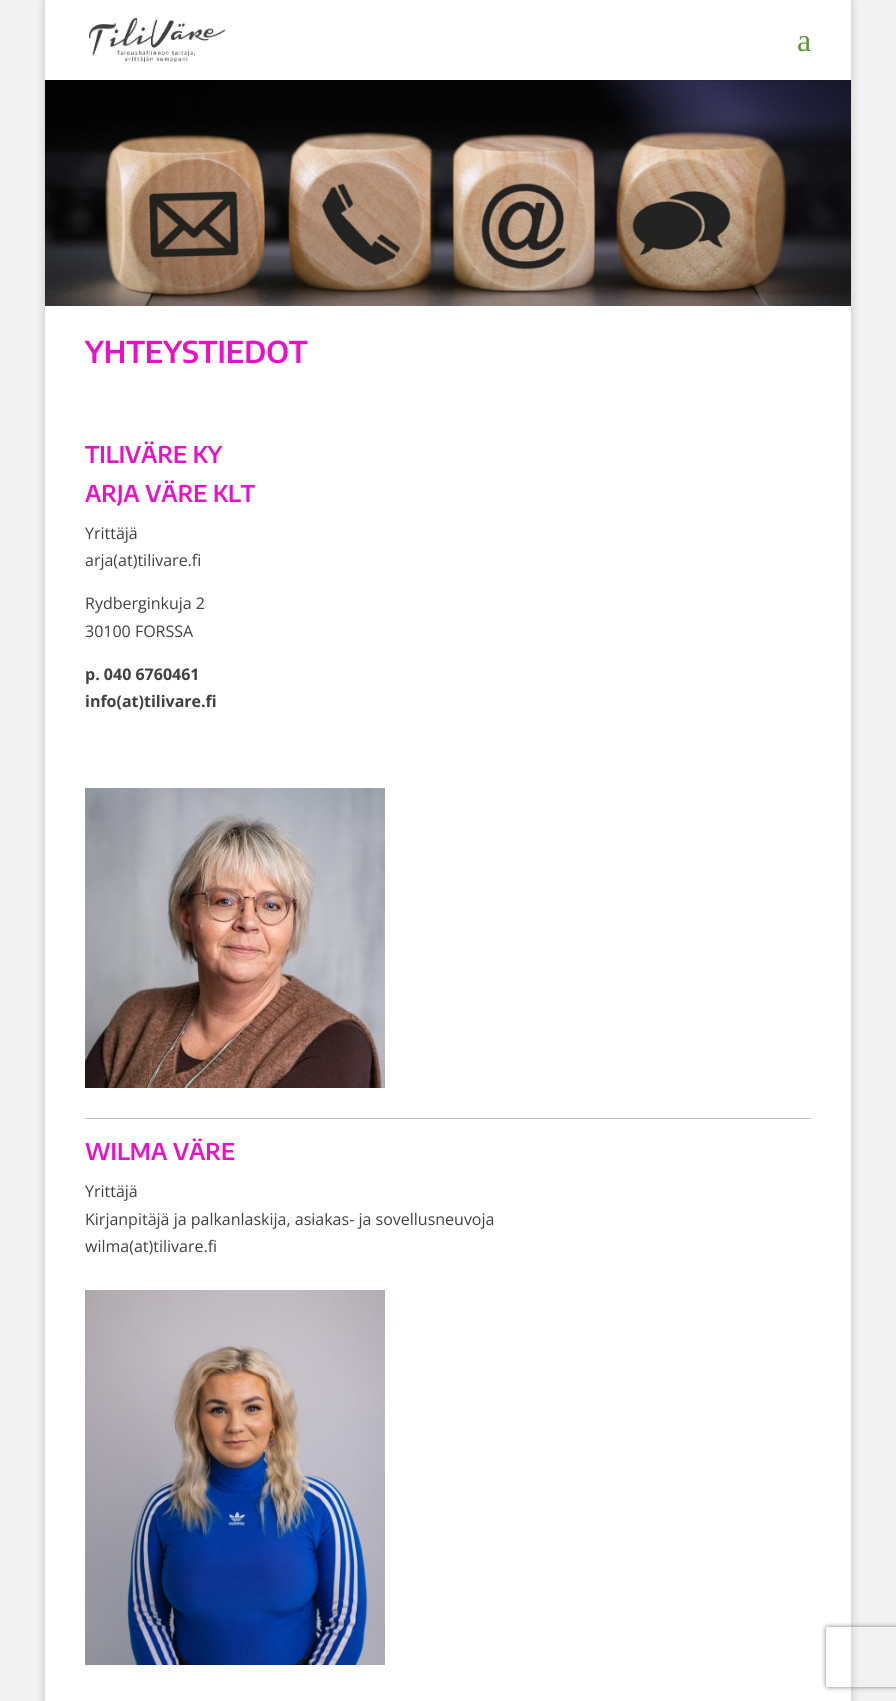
#include <cairo.h>
#include <math.h>
#include <stddef.h>


static void rgb(cairo_t *cr, int r, int g, int b)
{
	cairo_set_source_rgb(cr, r / 255.0, g / 255.0, b / 255.0);
}

static void face(cairo_t *cr, const char *family, double size, int italic, int bold)
{
	cairo_select_font_face(cr, family, italic ? CAIRO_FONT_SLANT_ITALIC : CAIRO_FONT_SLANT_NORMAL,
		bold ? CAIRO_FONT_WEIGHT_BOLD : CAIRO_FONT_WEIGHT_NORMAL);
	cairo_set_font_size(cr, size);
}

static void label(cairo_t *cr, double x, double y, const char *s)
{
	cairo_move_to(cr, x, y);
	cairo_show_text(cr, s);
}

static void rect(cairo_t *cr, double x, double y, double w, double h)
{
	cairo_rectangle(cr, x, y, w, h);
	cairo_fill(cr);
}

static void rrect(cairo_t *cr, double x, double y, double w, double h, double r)
{
	cairo_new_sub_path(cr);
	cairo_arc(cr, x + w - r, y + h - r, r, 0, M_PI / 2);
	cairo_arc(cr, x + r, y + h - r, r, M_PI / 2, M_PI);
	cairo_arc(cr, x + r, y + r, r, M_PI, 1.5 * M_PI);
	cairo_arc(cr, x + w - r, y + r, r, 1.5 * M_PI, 2 * M_PI);
	cairo_close_path(cr);
}

static void soft_shadow(cairo_t *cr, double x, double y, double w, double h, double r, double blur, double alpha)
{
	cairo_push_group_with_content(cr, CAIRO_CONTENT_ALPHA);
	cairo_set_operator(cr, CAIRO_OPERATOR_SOURCE);
	for (int i = 15; i >= -15 && fmin(w, h) + blur * i / 3 > 0; i -= 2) {
		double e = blur * i / 6;
		cairo_set_source_rgba(cr, 0, 0, 0, alpha * erfc((i - 1) / 8.5) / 2);
		rrect(cr, x - e, y - e, w + 2 * e, h + 2 * e, fmax(0, fmin(r + e + blur * .6, fmin(w, h) / 2 + e)));
		cairo_fill(cr);
	}
	cairo_pattern_t *soft = cairo_pop_group(cr);
	cairo_mask(cr, soft);
	cairo_pattern_destroy(soft);
}

static void image(cairo_t *cr, const char *path, double x, double y, double w, double h)
{
	cairo_surface_t *image = cairo_image_surface_create_from_png(path);
	cairo_save(cr);
	cairo_set_source_surface(cr, image, x, y);
	cairo_rectangle(cr, x, y, w, h);
	cairo_fill(cr);
	cairo_restore(cr);
	cairo_surface_destroy(image);
}

static void draw(cairo_t *cr) {
	rgb(cr, 242, 242, 242);
	cairo_paint(cr);
	rgb(cr, 0, 0, 0);
	soft_shadow(cr, 45, 0, 806, 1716, 0, 5, 0.2);
	image(cr, "image1.png", 45, 80, 806, 226);
	cairo_set_source_rgba(cr, 0, 0, 0, 0.1);
	rect(cr, 615, 80, 236, 1);
	rgb(cr, 255, 255, 255);
	rect(cr, 45, 0, 806, 80);
	image(cr, "image0.png", 89, 18, 136, 44);
	face(cr, "Liberation Serif", 32, 0, 0);
	rgb(cr, 93, 148, 65);
	label(cr, 797, 51, "a");
	rgb(cr, 255, 255, 255);
	rect(cr, 45, 306, 806, 1395);
	face(cr, "Encode Sans Condensed SemiBold", 30, 0, 0);
	rgb(cr, 235, 14, 202);
	label(cr, 85, 363, "YHTEYSTIEDOT");
	face(cr, "Encode Sans Condensed SemiBold", 23, 0, 0);
	label(cr, 85, 463, "TILIVÄRE KY");
	label(cr, 85, 502, "ARJA VÄRE KLT");
	face(cr, "Open Sans", 16, 0, 0);
	rgb(cr, 64, 64, 65);
	label(cr, 85, 539, "Yrittäjä");
	label(cr, 85, 566, "arja(at)tilivare.fi");
	label(cr, 85, 609, "Rydberginkuja 2");
	label(cr, 85, 637, "30100 FORSSA");
	face(cr, "Open Sans", 16, 0, 1);
	label(cr, 85, 680, "p. 040 6760461");
	label(cr, 85, 707, "info(at)tilivare.fi");
	image(cr, "image2.png", 85, 788, 300, 300);
	rgb(cr, 195, 196, 198);
	rect(cr, 85, 1118, 726, 1);
	face(cr, "Encode Sans Condensed SemiBold", 23, 0, 0);
	rgb(cr, 235, 14, 202);
	label(cr, 85, 1160, "WILMA VÄRE");
	face(cr, "Open Sans", 16, 0, 0);
	rgb(cr, 64, 64, 65);
	label(cr, 85, 1197, "Yrittäjä");
	label(cr, 85, 1225, "Kirjanpitäjä ja palkanlaskija, asiakas- ja sovellusneuvoja");
	label(cr, 85, 1252, "wilma(at)tilivare.fi");
	image(cr, "image3.png", 85, 1290, 300, 375);
	cairo_save(cr);
	cairo_set_fill_rule(cr, CAIRO_FILL_RULE_EVEN_ODD);
	cairo_new_path(cr);
	cairo_move_to(cr, 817, 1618);
	cairo_line_to(cr, 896, 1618);
	cairo_line_to(cr, 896, 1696);
	cairo_line_to(cr, 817, 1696);
	cairo_close_path(cr);
	cairo_move_to(cr, 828, 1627);
	cairo_line_to(cr, 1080, 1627);
	cairo_curve_to(cr, 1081, 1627, 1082, 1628, 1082, 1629);
	cairo_line_to(cr, 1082, 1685);
	cairo_curve_to(cr, 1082, 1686, 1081, 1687, 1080, 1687);
	cairo_line_to(cr, 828, 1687);
	cairo_curve_to(cr, 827, 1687, 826, 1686, 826, 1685);
	cairo_line_to(cr, 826, 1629);
	cairo_curve_to(cr, 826, 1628, 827, 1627, 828, 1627);
	cairo_close_path(cr);
	cairo_clip(cr);
	rgb(cr, 128, 128, 128);
	soft_shadow(cr, 826, 1627, 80, 60, 2, 2.5, 1);
	cairo_restore(cr);
}

int main(void) {
	cairo_surface_t *surface = cairo_image_surface_create(CAIRO_FORMAT_RGB24, 896, 1701);
	cairo_t *cr = cairo_create(surface);
	cairo_font_options_t *options = cairo_font_options_create();
	cairo_font_options_set_hint_metrics(options, CAIRO_HINT_METRICS_OFF);
	cairo_font_options_set_hint_style(options, CAIRO_HINT_STYLE_NONE);
	cairo_set_font_options(cr, options);
	cairo_set_miter_limit(cr, 4);
	draw(cr);
	cairo_surface_write_to_png(surface, "render.png");
	cairo_font_options_destroy(options);
	cairo_destroy(cr);
	cairo_surface_destroy(surface);
	return 0;
}
